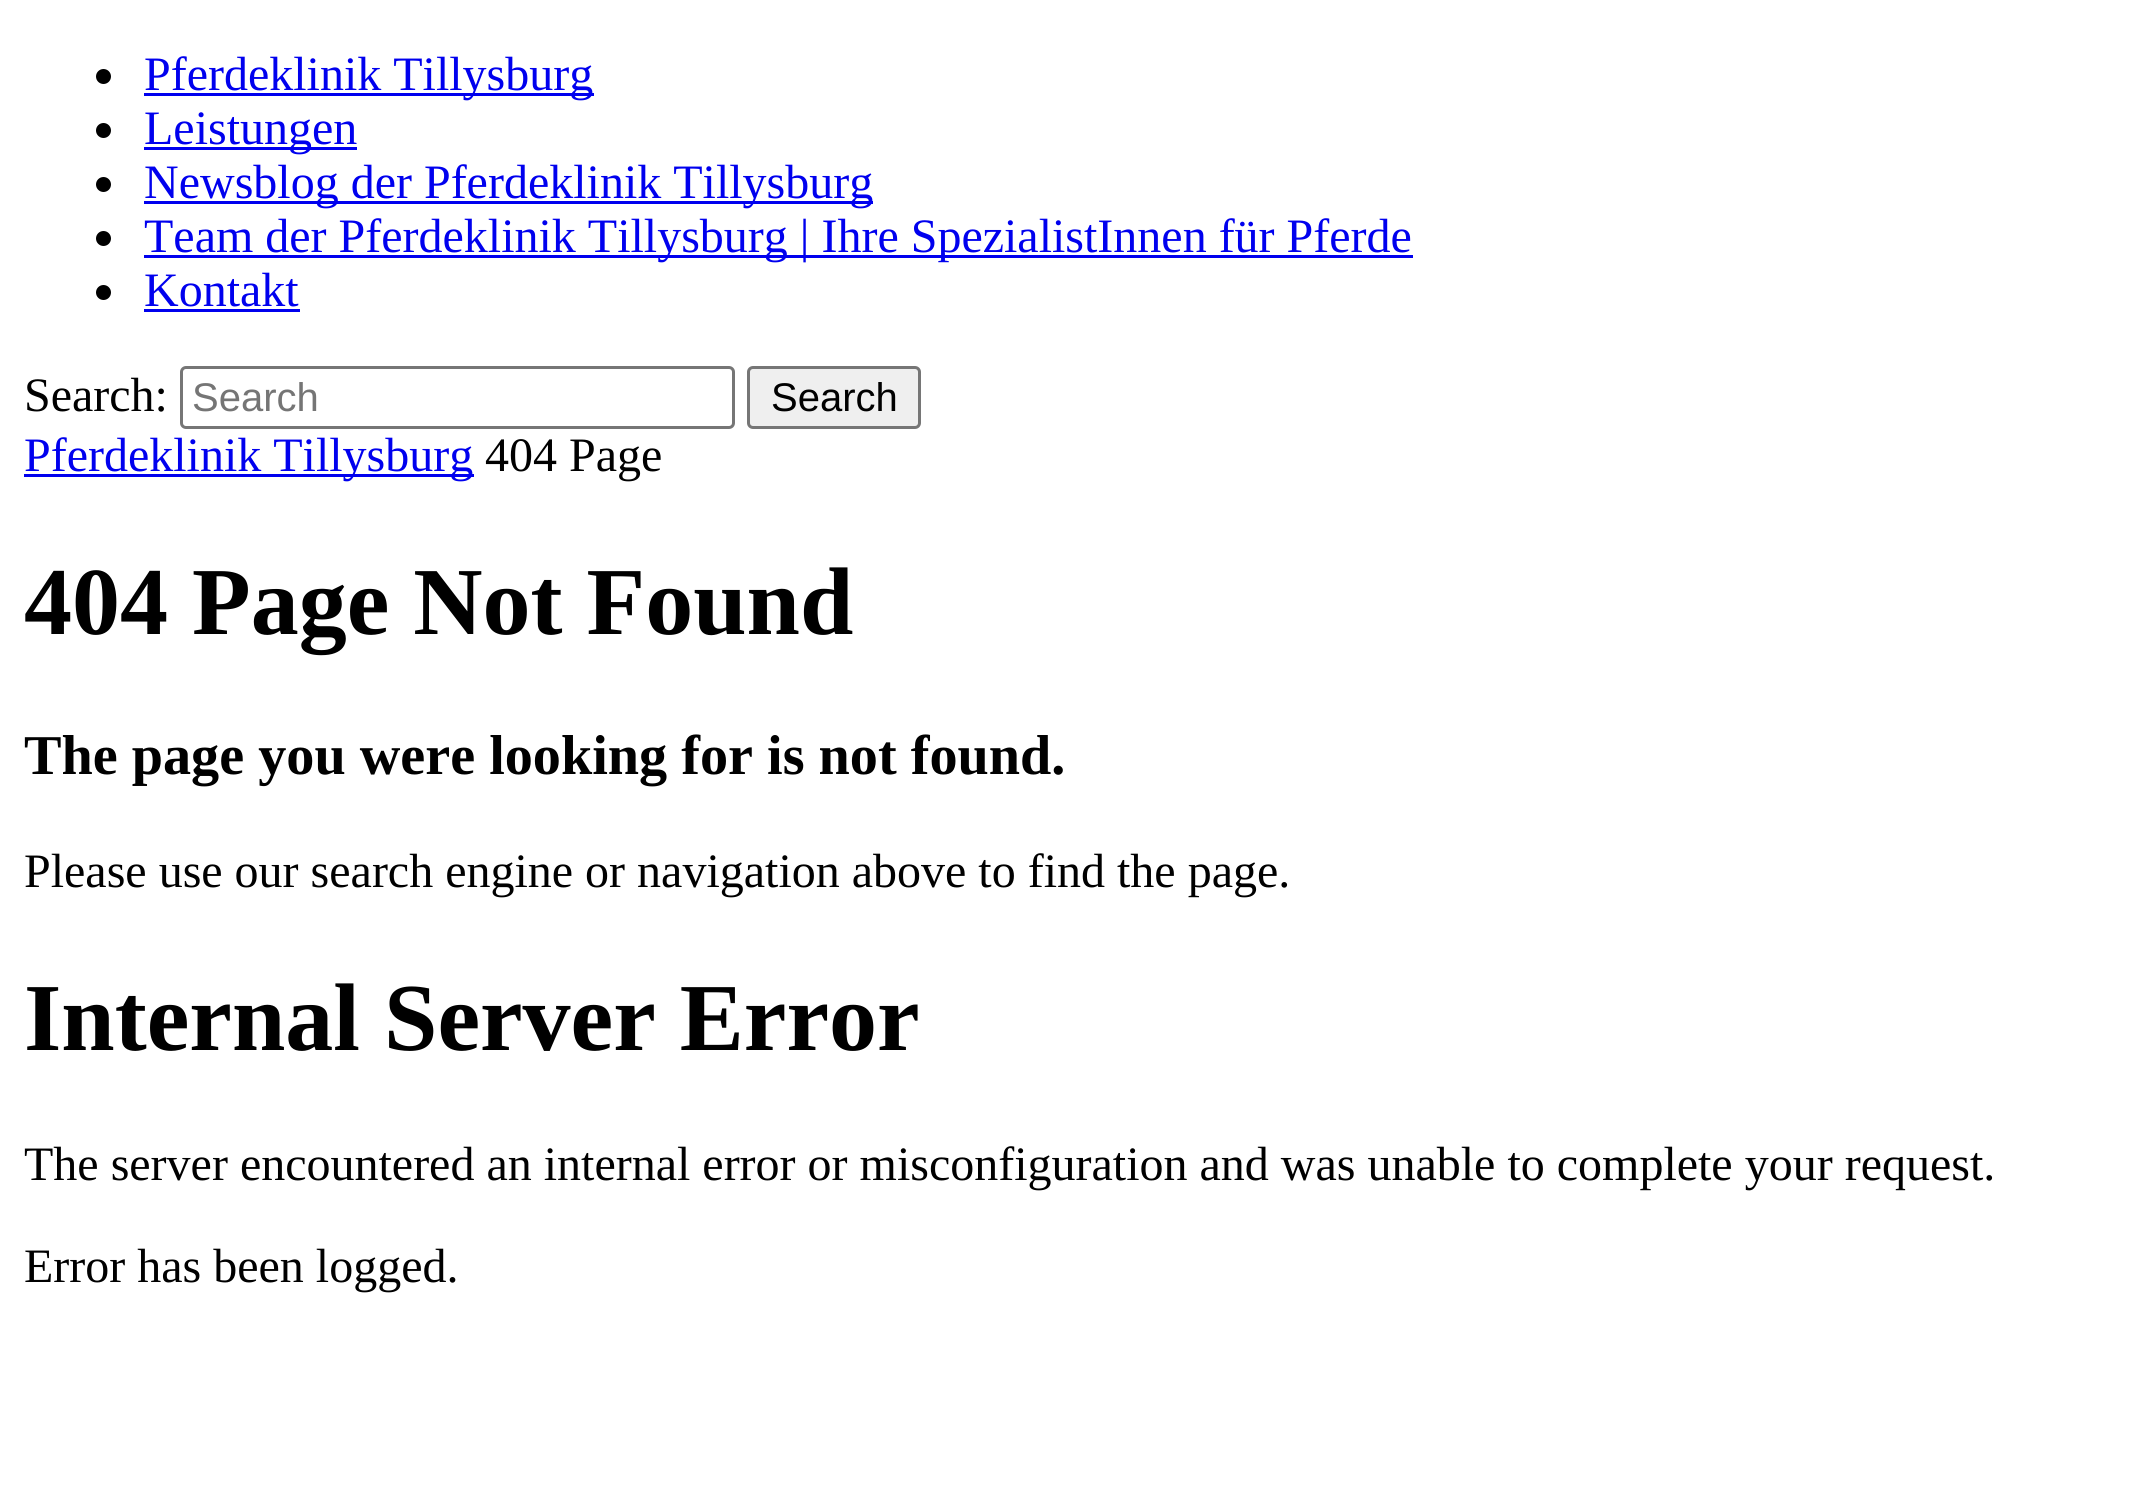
#include <cairo.h>
#include <math.h>
#include <stddef.h>


static void rgb(cairo_t *cr, int r, int g, int b)
{
	cairo_set_source_rgb(cr, r / 255.0, g / 255.0, b / 255.0);
}

static void face(cairo_t *cr, const char *family, double size, int italic, int bold)
{
	cairo_select_font_face(cr, family, italic ? CAIRO_FONT_SLANT_ITALIC : CAIRO_FONT_SLANT_NORMAL,
		bold ? CAIRO_FONT_WEIGHT_BOLD : CAIRO_FONT_WEIGHT_NORMAL);
	cairo_set_font_size(cr, size);
}

static void label(cairo_t *cr, double x, double y, const char *s)
{
	cairo_move_to(cr, x, y);
	cairo_show_text(cr, s);
}

static void rect(cairo_t *cr, double x, double y, double w, double h)
{
	cairo_rectangle(cr, x, y, w, h);
	cairo_fill(cr);
}

static void rrect(cairo_t *cr, double x, double y, double w, double h, double r)
{
	cairo_new_sub_path(cr);
	cairo_arc(cr, x + w - r, y + h - r, r, 0, M_PI / 2);
	cairo_arc(cr, x + r, y + h - r, r, M_PI / 2, M_PI);
	cairo_arc(cr, x + r, y + r, r, M_PI, 1.5 * M_PI);
	cairo_arc(cr, x + w - r, y + r, r, 1.5 * M_PI, 2 * M_PI);
	cairo_close_path(cr);
}

static void draw(cairo_t *cr) {
	rgb(cr, 255, 255, 255);
	cairo_paint(cr);
	rgb(cr, 0, 0, 0);
	cairo_arc(cr, 103.5, 76.5, 7.5, 0, 2 * M_PI);
	cairo_fill(cr);
	rgb(cr, 0, 0, 238);
	rect(cr, 144, 93, 450, 3);
	face(cr, "Liberation Serif", 48, 0, 0);
	label(cr, 144, 90, "Pferdeklinik Tillysburg");
	rgb(cr, 0, 0, 0);
	cairo_new_path(cr);
	cairo_arc(cr, 103.5, 130.5, 7.5, 0, 2 * M_PI);
	cairo_fill(cr);
	rgb(cr, 0, 0, 238);
	rect(cr, 144, 147, 213, 3);
	label(cr, 144, 144, "Leistungen");
	rgb(cr, 0, 0, 0);
	cairo_new_path(cr);
	cairo_arc(cr, 103.5, 184.5, 7.5, 0, 2 * M_PI);
	cairo_fill(cr);
	rgb(cr, 0, 0, 238);
	rect(cr, 144, 201, 729, 3);
	label(cr, 144, 198, "Newsblog der Pferdeklinik Tillysburg");
	rgb(cr, 0, 0, 0);
	cairo_new_path(cr);
	cairo_arc(cr, 103.5, 238.5, 7.5, 0, 2 * M_PI);
	cairo_fill(cr);
	rgb(cr, 0, 0, 238);
	rect(cr, 144, 255, 1269, 3);
	label(cr, 144, 252, "Team der Pferdeklinik Tillysburg | Ihre SpezialistInnen für Pferde");
	rgb(cr, 0, 0, 0);
	cairo_new_path(cr);
	cairo_arc(cr, 103.5, 292.5, 7.5, 0, 2 * M_PI);
	cairo_fill(cr);
	rgb(cr, 0, 0, 238);
	label(cr, 144, 306, "Kontakt");
	rect(cr, 144, 309, 156, 3);
	rgb(cr, 0, 0, 0);
	label(cr, 24, 411, "Search:");
	rrect(cr, 181.5, 367.5, 552, 60, 4.5);
	rgb(cr, 118, 118, 118);
	cairo_set_line_width(cr, 3);
	cairo_stroke(cr);
	face(cr, "Liberation Sans", 40, 0, 0);
	rgb(cr, 117, 117, 117);
	label(cr, 192, 411, "Search");
	rgb(cr, 239, 239, 239);
	rrect(cr, 748.5, 367.5, 171, 60, 4.5);
	cairo_fill_preserve(cr);
	rgb(cr, 118, 118, 118);
	cairo_stroke(cr);
	rgb(cr, 0, 0, 0);
	label(cr, 771, 411, "Search");
	rgb(cr, 0, 0, 238);
	rect(cr, 24, 474, 450, 3);
	face(cr, "Liberation Serif", 48, 0, 0);
	label(cr, 24, 471, "Pferdeklinik Tillysburg");
	rgb(cr, 0, 0, 0);
	label(cr, 485, 471, "404 Page");
	face(cr, "Liberation Serif", 96, 0, 1);
	label(cr, 24, 634, "404 Page Not Found");
	face(cr, "Liberation Serif", 56.2, 0, 1);
	label(cr, 24, 774, "The page you were looking for is not found.");
	face(cr, "Liberation Serif", 48, 0, 0);
	label(cr, 24, 887, "Please use our search engine or navigation above to find the page.");
	face(cr, "Liberation Serif", 96, 0, 1);
	label(cr, 24, 1050, "Internal Server Error");
	face(cr, "Liberation Serif", 48, 0, 0);
	label(cr, 24, 1180, "The server encountered an internal error or misconfiguration and was unable to complete your request.");
	label(cr, 24, 1282, "Error has been logged.");
}

int main(void) {
	cairo_surface_t *surface = cairo_image_surface_create(CAIRO_FORMAT_RGB24, 2133, 1490);
	cairo_t *cr = cairo_create(surface);
	cairo_font_options_t *options = cairo_font_options_create();
	cairo_font_options_set_hint_metrics(options, CAIRO_HINT_METRICS_OFF);
	cairo_font_options_set_hint_style(options, CAIRO_HINT_STYLE_NONE);
	cairo_set_font_options(cr, options);
	cairo_set_miter_limit(cr, 4);
	draw(cr);
	cairo_surface_write_to_png(surface, "render.png");
	cairo_font_options_destroy(options);
	cairo_destroy(cr);
	cairo_surface_destroy(surface);
	return 0;
}
